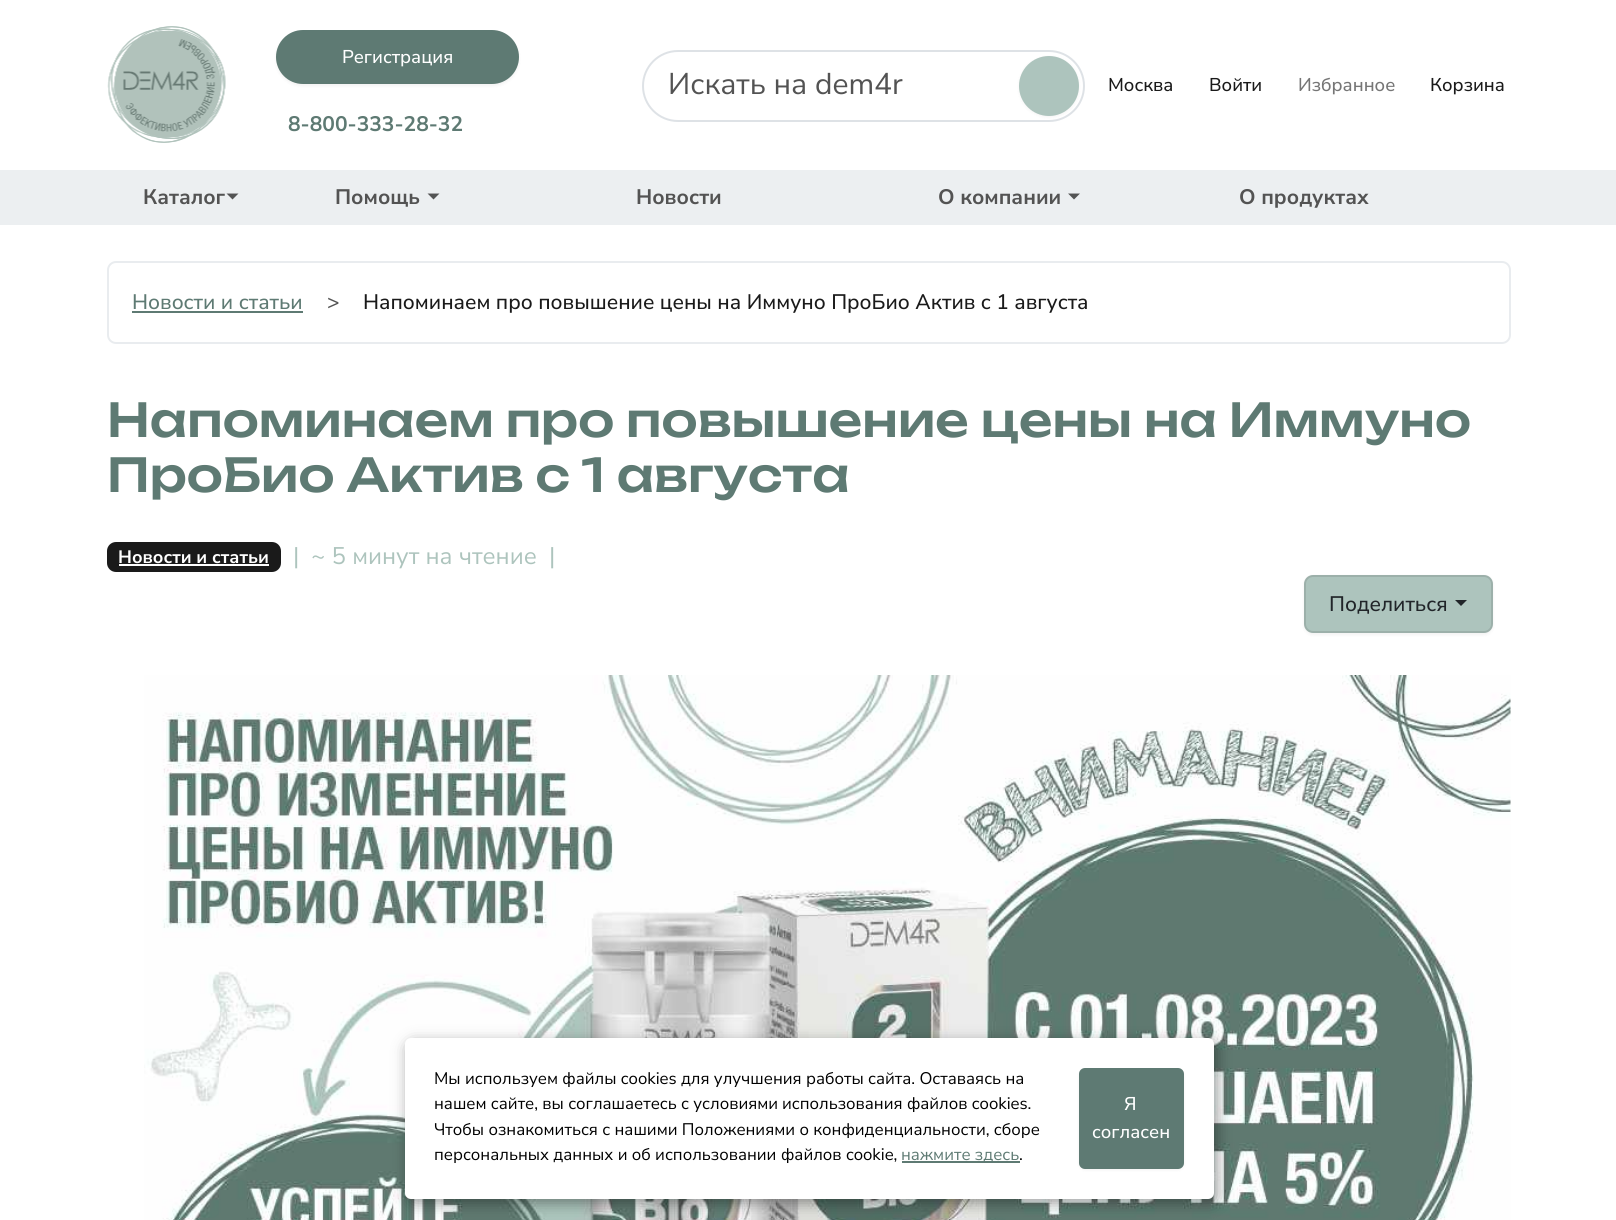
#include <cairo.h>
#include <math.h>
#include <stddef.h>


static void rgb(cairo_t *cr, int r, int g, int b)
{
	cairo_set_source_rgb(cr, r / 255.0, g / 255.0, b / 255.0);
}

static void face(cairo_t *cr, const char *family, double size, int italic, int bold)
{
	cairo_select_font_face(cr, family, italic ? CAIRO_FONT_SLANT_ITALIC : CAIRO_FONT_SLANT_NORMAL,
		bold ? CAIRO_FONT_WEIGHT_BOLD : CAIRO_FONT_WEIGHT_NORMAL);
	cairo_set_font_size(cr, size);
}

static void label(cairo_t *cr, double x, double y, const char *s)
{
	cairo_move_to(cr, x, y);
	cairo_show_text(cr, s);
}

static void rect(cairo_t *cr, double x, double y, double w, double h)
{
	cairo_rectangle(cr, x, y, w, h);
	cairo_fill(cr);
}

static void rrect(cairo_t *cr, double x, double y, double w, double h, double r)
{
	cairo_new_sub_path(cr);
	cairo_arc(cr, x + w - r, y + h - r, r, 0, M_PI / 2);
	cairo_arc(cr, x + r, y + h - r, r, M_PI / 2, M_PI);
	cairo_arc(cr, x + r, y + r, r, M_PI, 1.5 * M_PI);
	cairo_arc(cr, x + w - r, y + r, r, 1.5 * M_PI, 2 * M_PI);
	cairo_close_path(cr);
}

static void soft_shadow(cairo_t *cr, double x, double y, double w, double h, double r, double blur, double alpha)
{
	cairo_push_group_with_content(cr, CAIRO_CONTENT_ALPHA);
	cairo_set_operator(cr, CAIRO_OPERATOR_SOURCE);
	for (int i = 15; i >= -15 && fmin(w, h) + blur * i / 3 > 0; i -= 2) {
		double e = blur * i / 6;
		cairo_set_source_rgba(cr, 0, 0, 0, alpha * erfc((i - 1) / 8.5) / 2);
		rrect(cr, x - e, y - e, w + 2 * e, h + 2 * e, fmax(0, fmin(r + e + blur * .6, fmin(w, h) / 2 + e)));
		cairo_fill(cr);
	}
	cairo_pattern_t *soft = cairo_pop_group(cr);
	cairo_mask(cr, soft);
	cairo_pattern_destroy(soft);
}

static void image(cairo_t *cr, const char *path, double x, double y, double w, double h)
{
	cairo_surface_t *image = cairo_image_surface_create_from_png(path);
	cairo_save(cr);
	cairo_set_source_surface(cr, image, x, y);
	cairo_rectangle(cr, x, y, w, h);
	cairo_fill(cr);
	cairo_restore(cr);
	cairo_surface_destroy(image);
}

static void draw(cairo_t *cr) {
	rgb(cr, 255, 255, 255);
	cairo_paint(cr);
	image(cr, "image0.png", 107, 26, 119, 117);
	rgb(cr, 0, 0, 0);
	soft_shadow(cr, 276, 32, 243, 54, 27, 1.5, 0.05);
	rgb(cr, 94, 122, 115);
	rrect(cr, 277, 31, 241, 52, 26);
	cairo_fill_preserve(cr);
	cairo_stroke(cr);
	face(cr, "Nunito Sans Medium", 18.5, 0, 0);
	rgb(cr, 255, 255, 255);
	label(cr, 342, 63, "Регистрация");
	face(cr, "Nunito Sans", 21, 0, 1);
	rgb(cr, 94, 122, 115);
	label(cr, 288, 131, "8-800-333-28-32");
	rrect(cr, 643, 51, 441, 70, 35);
	rgb(cr, 222, 226, 230);
	cairo_stroke(cr);
	face(cr, "Nunito Sans", 30, 0, 0);
	rgb(cr, 83, 83, 83);
	label(cr, 668, 94, "Искать на dem4r");
	rgb(cr, 0, 0, 0);
	soft_shadow(cr, 1019, 57, 60, 60, 30, 1.5, 0.05);
	rgb(cr, 173, 196, 189);
	cairo_arc(cr, 1049, 86, 30, 0, 2 * M_PI);
	cairo_fill(cr);
	face(cr, "Nunito Sans Medium", 18.5, 0, 0);
	rgb(cr, 26, 26, 26);
	label(cr, 1108, 91, "Москва");
	label(cr, 1209, 91, "Войти");
	rgb(cr, 118, 118, 118);
	label(cr, 1298, 91, "Избранное");
	rgb(cr, 26, 26, 26);
	label(cr, 1430, 91, "Корзина");
	rgb(cr, 236, 239, 241);
	rect(cr, 0, 170, 1616, 55);
	face(cr, "Nunito Sans", 21, 0, 1);
	rgb(cr, 83, 83, 83);
	label(cr, 143, 204, "Каталог");
	rgb(cr, 83, 84, 84);
	cairo_new_path(cr);
	cairo_move_to(cr, 226.5, 193.5);
	cairo_line_to(cr, 238.5, 193.5);
	cairo_line_to(cr, 232.5, 199.5);
	cairo_close_path(cr);
	cairo_fill(cr);
	rgb(cr, 83, 83, 83);
	label(cr, 335, 204, "Помощь");
	rgb(cr, 83, 84, 84);
	cairo_new_path(cr);
	cairo_move_to(cr, 427.5, 193.5);
	cairo_line_to(cr, 439.5, 193.5);
	cairo_line_to(cr, 433.5, 199.5);
	cairo_close_path(cr);
	cairo_fill(cr);
	rgb(cr, 83, 83, 83);
	label(cr, 636, 204, "Новости");
	label(cr, 938, 204, "О компании");
	rgb(cr, 83, 84, 84);
	cairo_new_path(cr);
	cairo_move_to(cr, 1068, 193.5);
	cairo_line_to(cr, 1080, 193.5);
	cairo_line_to(cr, 1074, 199.5);
	cairo_close_path(cr);
	cairo_fill(cr);
	rgb(cr, 83, 83, 83);
	label(cr, 1239, 204, "О продуктах");
	rrect(cr, 108, 262, 1402, 81, 8);
	rgb(cr, 233, 236, 239);
	cairo_stroke(cr);
	face(cr, "Nunito Sans Medium", 21, 0, 0);
	rgb(cr, 94, 122, 115);
	label(cr, 132, 309, "Новости и статьи");
	rect(cr, 132, 311, 171, 2);
	rgb(cr, 83, 83, 83);
	label(cr, 327, 309, ">");
	rgb(cr, 26, 26, 26);
	label(cr, 363, 309, "Напоминаем про повышение цены на Иммуно ПроБио Актив с 1 августа");
	face(cr, "Unbounded Medium", 46.35, 0, 0);
	rgb(cr, 94, 122, 115);
	label(cr, 107, 437, "Напоминаем про повышение цены на Иммуно");
	label(cr, 107, 492, "ПроБио Актив с 1 августа");
	rgb(cr, 26, 26, 26);
	rrect(cr, 107, 542, 174, 30, 9);
	cairo_fill(cr);
	face(cr, "Nunito Sans", 18, 0, 1);
	rgb(cr, 255, 255, 255);
	label(cr, 118, 563, "Новости и статьи");
	rect(cr, 119, 564, 150, 2);
	face(cr, "Nunito Sans", 24, 0, 0);
	rgb(cr, 173, 196, 189);
	label(cr, 293, 564, "|");
	label(cr, 311, 564, "~ 5 минут на чтение");
	label(cr, 549, 564, "|");
	rgb(cr, 0, 0, 0);
	soft_shadow(cr, 1304, 576, 189, 59, 9, 1.5, 0.05);
	rgb(cr, 173, 196, 189);
	rrect(cr, 1305, 576, 187, 56, 8);
	cairo_fill_preserve(cr);
	rgb(cr, 156, 176, 170);
	cairo_stroke(cr);
	face(cr, "Nunito Sans Medium", 21, 0, 0);
	rgb(cr, 33, 37, 41);
	label(cr, 1329, 611, "Поделиться");
	cairo_new_path(cr);
	cairo_move_to(cr, 1455, 600);
	cairo_line_to(cr, 1467, 600);
	cairo_line_to(cr, 1461, 606);
	cairo_close_path(cr);
	cairo_fill(cr);
	image(cr, "image1.png", 144, 675, 1367, 545);
	rgb(cr, 0, 0, 0);
	soft_shadow(cr, 408, 1043, 809, 160, 6, 7.5, 0.4);
	rgb(cr, 255, 255, 255);
	rrect(cr, 405, 1038, 809, 161, 6);
	cairo_fill(cr);
	face(cr, "Nunito Sans", 16.8, 0, 0);
	rgb(cr, 0, 0, 0);
	label(cr, 434, 1084, "Мы используем файлы cookies для улучшения работы сайта. Оставаясь на");
	label(cr, 434, 1109, "нашем сайте, вы соглашаетесь с условиями");
	label(cr, 782, 1109, "использования файлов cookies.");
	label(cr, 434, 1135, "Чтобы ознакомиться с нашими Положениями о конфиденциальности, сборе");
	label(cr, 434, 1160, "персональных данных и об использовании");
	label(cr, 781, 1160, "файлов cookie,");
	rgb(cr, 94, 122, 115);
	rect(cr, 902, 1161, 118, 2);
	label(cr, 901, 1160, "нажмите здесь");
	rgb(cr, 0, 0, 0);
	label(cr, 1019, 1160, ".");
	rgb(cr, 0, 0, 0);
	soft_shadow(cr, 1079, 1070, 105, 100, 6, 1.5, 0.05);
	rgb(cr, 94, 122, 115);
	rrect(cr, 1080, 1069, 103, 99, 5);
	cairo_fill_preserve(cr);
	cairo_stroke(cr);
	face(cr, "Nunito Sans Medium", 18.5, 0, 0);
	rgb(cr, 255, 255, 255);
	label(cr, 1124, 1110, "Я");
	label(cr, 1092, 1138, "согласен");
}

int main(void) {
	cairo_surface_t *surface = cairo_image_surface_create(CAIRO_FORMAT_RGB24, 1616, 1220);
	cairo_t *cr = cairo_create(surface);
	cairo_font_options_t *options = cairo_font_options_create();
	cairo_font_options_set_hint_metrics(options, CAIRO_HINT_METRICS_OFF);
	cairo_font_options_set_hint_style(options, CAIRO_HINT_STYLE_NONE);
	cairo_set_font_options(cr, options);
	cairo_set_miter_limit(cr, 4);
	draw(cr);
	cairo_surface_write_to_png(surface, "render.png");
	cairo_font_options_destroy(options);
	cairo_destroy(cr);
	cairo_surface_destroy(surface);
	return 0;
}
